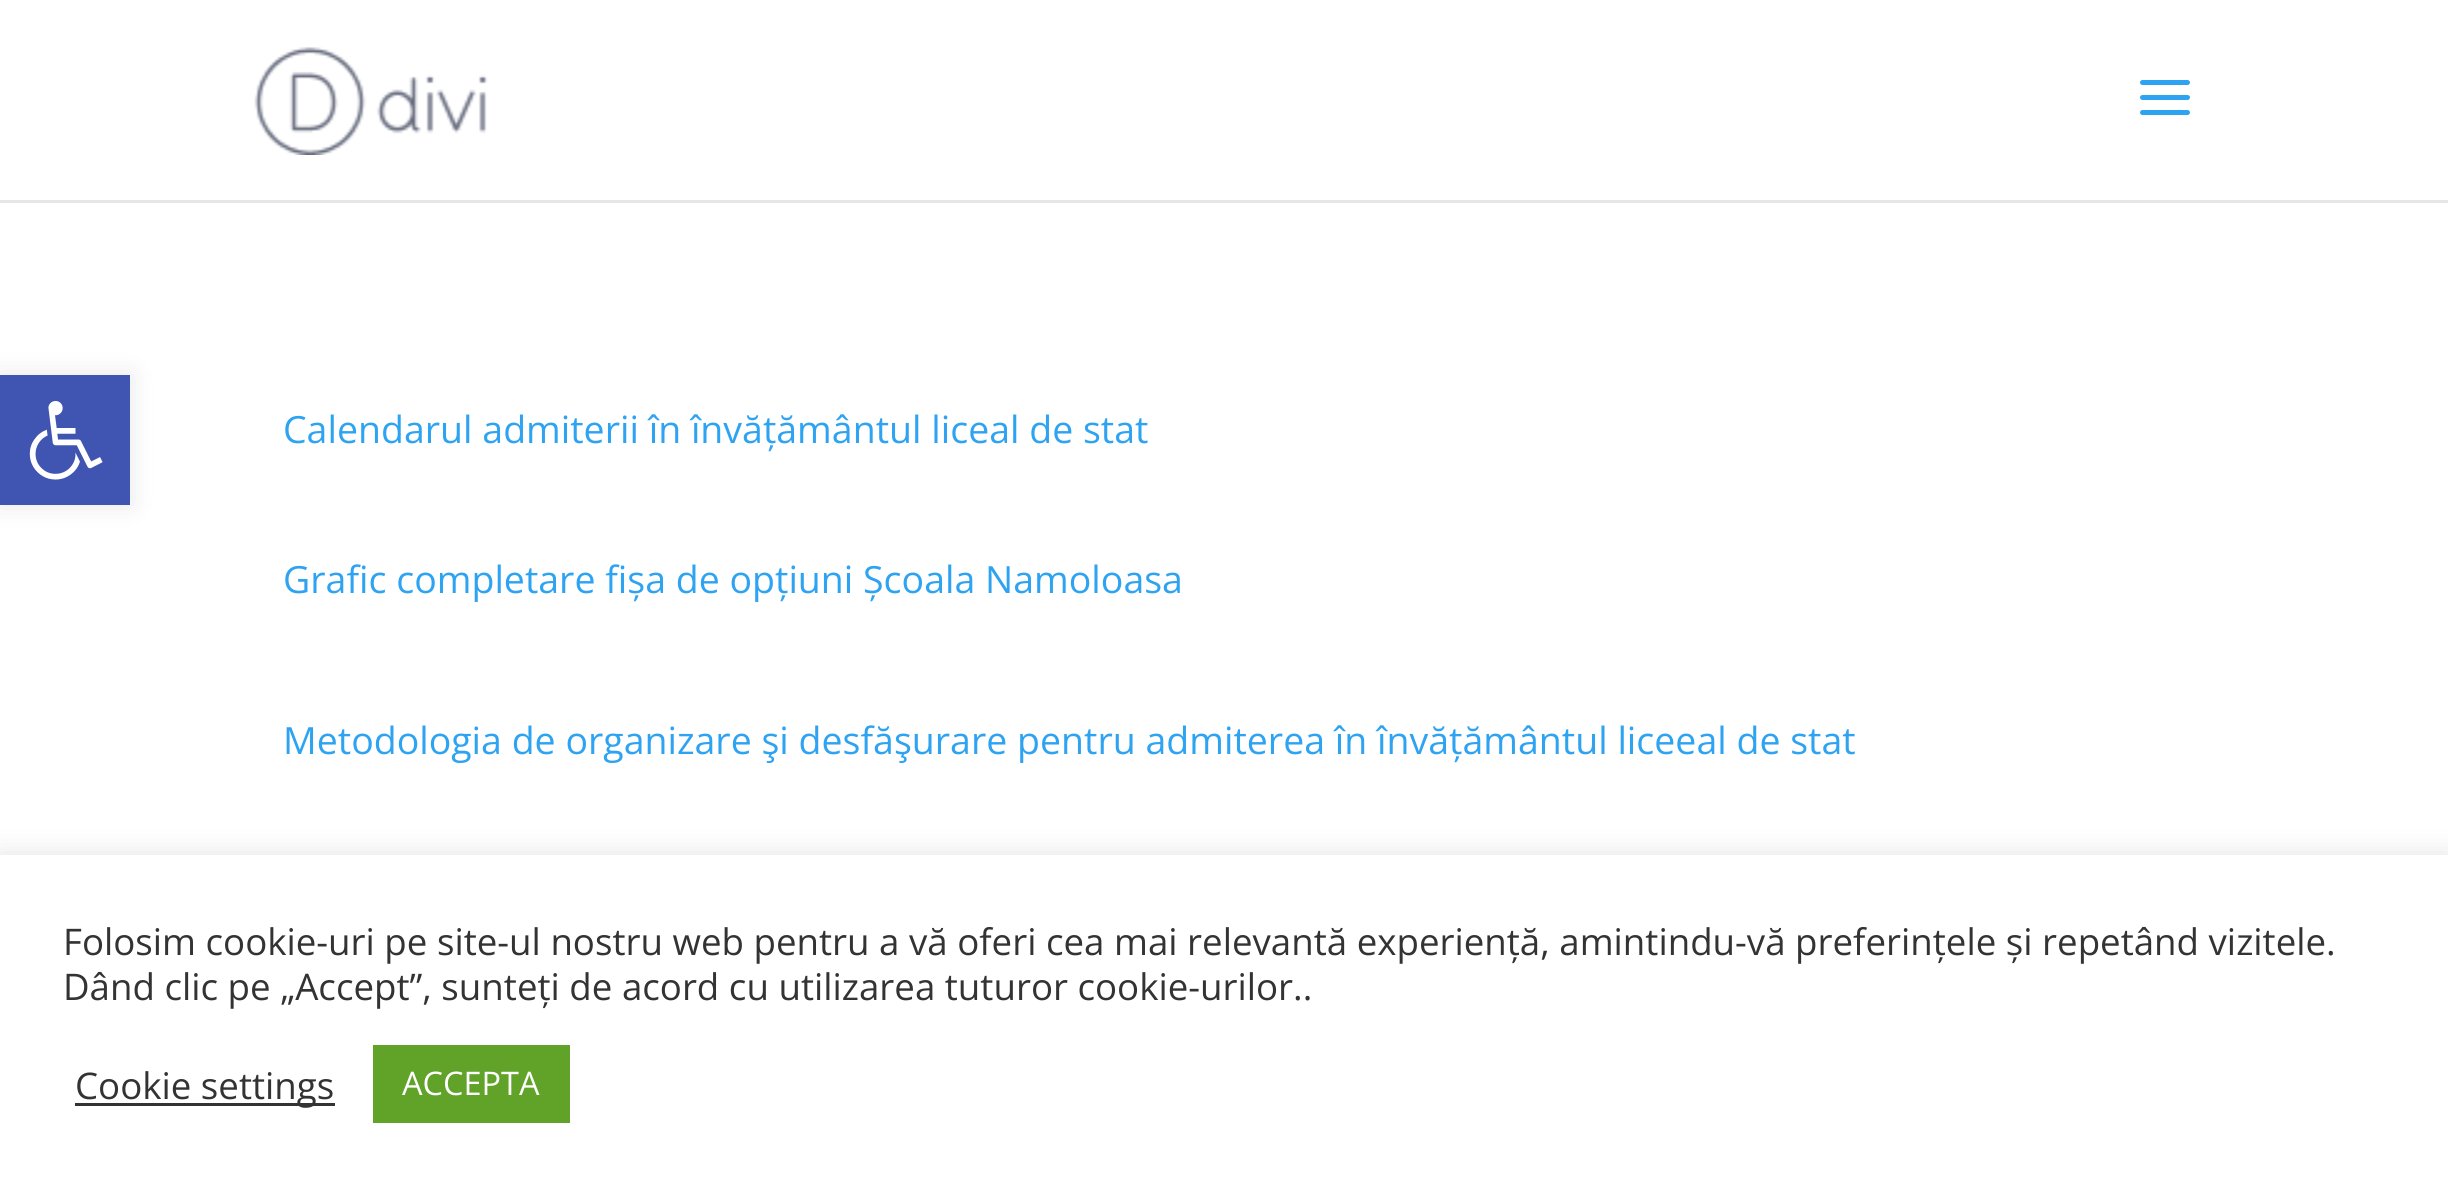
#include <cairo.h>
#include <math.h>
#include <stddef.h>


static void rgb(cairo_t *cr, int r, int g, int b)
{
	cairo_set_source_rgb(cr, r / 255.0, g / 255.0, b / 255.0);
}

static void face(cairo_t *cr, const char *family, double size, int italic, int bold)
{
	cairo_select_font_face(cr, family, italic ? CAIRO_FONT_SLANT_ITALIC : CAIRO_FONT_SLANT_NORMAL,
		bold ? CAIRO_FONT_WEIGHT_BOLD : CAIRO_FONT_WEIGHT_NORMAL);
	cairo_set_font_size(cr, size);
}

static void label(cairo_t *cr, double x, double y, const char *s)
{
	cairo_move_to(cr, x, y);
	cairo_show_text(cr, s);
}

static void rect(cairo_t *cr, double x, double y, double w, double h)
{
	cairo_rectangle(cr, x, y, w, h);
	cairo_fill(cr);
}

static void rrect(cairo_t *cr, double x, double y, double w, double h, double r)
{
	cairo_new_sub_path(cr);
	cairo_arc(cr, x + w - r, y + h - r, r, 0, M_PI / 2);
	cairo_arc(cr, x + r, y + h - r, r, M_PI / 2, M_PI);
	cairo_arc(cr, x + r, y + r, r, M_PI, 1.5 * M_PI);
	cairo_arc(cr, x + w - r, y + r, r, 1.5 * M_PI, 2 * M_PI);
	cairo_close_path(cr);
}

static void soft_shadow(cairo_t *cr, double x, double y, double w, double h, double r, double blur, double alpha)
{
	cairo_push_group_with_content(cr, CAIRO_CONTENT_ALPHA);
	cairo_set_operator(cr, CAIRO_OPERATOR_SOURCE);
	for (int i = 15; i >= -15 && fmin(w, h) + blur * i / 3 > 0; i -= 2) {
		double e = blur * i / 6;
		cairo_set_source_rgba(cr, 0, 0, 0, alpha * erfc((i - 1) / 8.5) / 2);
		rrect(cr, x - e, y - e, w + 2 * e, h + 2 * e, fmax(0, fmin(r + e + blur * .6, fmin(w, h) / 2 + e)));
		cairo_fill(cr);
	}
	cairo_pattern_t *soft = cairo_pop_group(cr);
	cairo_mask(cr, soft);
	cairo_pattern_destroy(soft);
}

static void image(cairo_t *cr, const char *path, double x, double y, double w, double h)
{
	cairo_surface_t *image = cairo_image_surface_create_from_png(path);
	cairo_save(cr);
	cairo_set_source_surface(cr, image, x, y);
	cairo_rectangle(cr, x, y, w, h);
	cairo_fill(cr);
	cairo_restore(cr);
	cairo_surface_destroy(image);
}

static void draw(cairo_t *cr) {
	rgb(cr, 255, 255, 255);
	cairo_paint(cr);
	rgb(cr, 0, 0, 0);
	soft_shadow(cr, 0, 375, 130, 130, 0, 12.5, 0.1);
	rgb(cr, 64, 84, 178);
	rect(cr, 0, 375, 130, 130);
	image(cr, "image0.png", 29, 401, 74, 79);
	rgb(cr, 230, 230, 230);
	rect(cr, 0, 200, 2448, 3);
	image(cr, "image1.png", 254, 47, 234, 108);
	image(cr, "image2.png", 2140, 80, 50, 35);
	face(cr, "Open Sans", 37.5, 0, 0);
	rgb(cr, 46, 163, 242);
	label(cr, 283, 443, "Calendarul admiterii în învățământul liceal de stat");
	label(cr, 283, 593, "Grafic completare fișa de opțiuni Școala Namoloasa");
	label(cr, 283, 754, "Metodologia de organizare şi desfăşurare pentru admiterea în învățământul liceeal de stat");
	rgb(cr, 172, 171, 171);
	soft_shadow(cr, 0, 853, 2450, 342, 0, 12.5, 0.3);
	rgb(cr, 255, 255, 255);
	rect(cr, 0, 855, 2448, 342);
	face(cr, "Open Sans", 36.67, 0, 0);
	rgb(cr, 51, 51, 51);
	label(cr, 63, 955, "Folosim cookie-uri pe site-ul nostru web pentru a vă oferi cea mai relevantă experiență, amintindu-vă preferințele și repetând vizitele.");
	label(cr, 63, 1000, "Dând clic pe „Accept”, sunteți de acord cu utilizarea tuturor cookie-urilor..");
	rect(cr, 75, 1103, 260, 3);
	label(cr, 75, 1099, "Cookie settings");
	rgb(cr, 97, 162, 41);
	rect(cr, 373, 1045, 197, 78);
	face(cr, "Open Sans", 32.5, 0, 0);
	rgb(cr, 255, 255, 255);
	label(cr, 402, 1095, "ACCEPTA");
}

int main(void) {
	cairo_surface_t *surface = cairo_image_surface_create(CAIRO_FORMAT_RGB24, 2448, 1197);
	cairo_t *cr = cairo_create(surface);
	cairo_font_options_t *options = cairo_font_options_create();
	cairo_font_options_set_hint_metrics(options, CAIRO_HINT_METRICS_OFF);
	cairo_font_options_set_hint_style(options, CAIRO_HINT_STYLE_NONE);
	cairo_set_font_options(cr, options);
	cairo_set_miter_limit(cr, 4);
	draw(cr);
	cairo_surface_write_to_png(surface, "render.png");
	cairo_font_options_destroy(options);
	cairo_destroy(cr);
	cairo_surface_destroy(surface);
	return 0;
}
